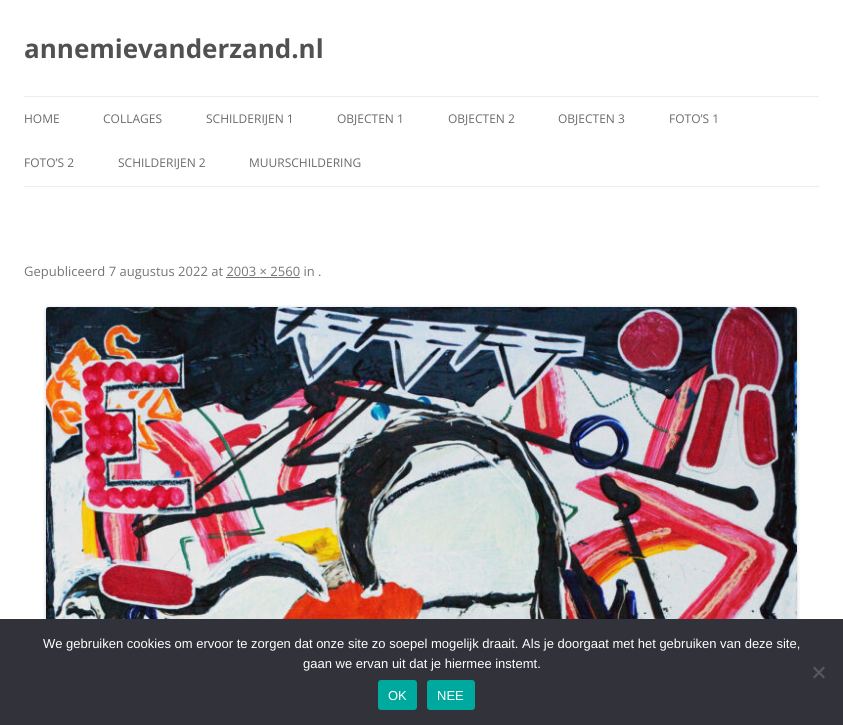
#include <cairo.h>
#include <math.h>
#include <stddef.h>


static void rgb(cairo_t *cr, int r, int g, int b)
{
	cairo_set_source_rgb(cr, r / 255.0, g / 255.0, b / 255.0);
}

static void face(cairo_t *cr, const char *family, double size, int italic, int bold)
{
	cairo_select_font_face(cr, family, italic ? CAIRO_FONT_SLANT_ITALIC : CAIRO_FONT_SLANT_NORMAL,
		bold ? CAIRO_FONT_WEIGHT_BOLD : CAIRO_FONT_WEIGHT_NORMAL);
	cairo_set_font_size(cr, size);
}

static void label(cairo_t *cr, double x, double y, const char *s)
{
	cairo_move_to(cr, x, y);
	cairo_show_text(cr, s);
}

static void rect(cairo_t *cr, double x, double y, double w, double h)
{
	cairo_rectangle(cr, x, y, w, h);
	cairo_fill(cr);
}

static void rrect(cairo_t *cr, double x, double y, double w, double h, double r)
{
	cairo_new_sub_path(cr);
	cairo_arc(cr, x + w - r, y + h - r, r, 0, M_PI / 2);
	cairo_arc(cr, x + r, y + h - r, r, M_PI / 2, M_PI);
	cairo_arc(cr, x + r, y + r, r, M_PI, 1.5 * M_PI);
	cairo_arc(cr, x + w - r, y + r, r, 1.5 * M_PI, 2 * M_PI);
	cairo_close_path(cr);
}

static void soft_shadow(cairo_t *cr, double x, double y, double w, double h, double r, double blur, double alpha)
{
	cairo_push_group_with_content(cr, CAIRO_CONTENT_ALPHA);
	cairo_set_operator(cr, CAIRO_OPERATOR_SOURCE);
	for (int i = 15; i >= -15 && fmin(w, h) + blur * i / 3 > 0; i -= 2) {
		double e = blur * i / 6;
		cairo_set_source_rgba(cr, 0, 0, 0, alpha * erfc((i - 1) / 8.5) / 2);
		rrect(cr, x - e, y - e, w + 2 * e, h + 2 * e, fmax(0, fmin(r + e + blur * .6, fmin(w, h) / 2 + e)));
		cairo_fill(cr);
	}
	cairo_pattern_t *soft = cairo_pop_group(cr);
	cairo_mask(cr, soft);
	cairo_pattern_destroy(soft);
}

static void image(cairo_t *cr, const char *path, double x, double y, double w, double h)
{
	cairo_surface_t *image = cairo_image_surface_create_from_png(path);
	cairo_save(cr);
	cairo_set_source_surface(cr, image, x, y);
	cairo_rectangle(cr, x, y, w, h);
	cairo_fill(cr);
	cairo_restore(cr);
	cairo_surface_destroy(image);
}

static void draw(cairo_t *cr) {
	rgb(cr, 255, 255, 255);
	cairo_paint(cr);
	face(cr, "Open Sans", 26, 0, 1);
	rgb(cr, 81, 81, 81);
	label(cr, 24, 58, "annemievanderzand.nl");
	rgb(cr, 237, 237, 237);
	rect(cr, 24, 96, 795, 1);
	rect(cr, 24, 186, 795, 1);
	face(cr, "Open Sans", 12, 0, 0);
	rgb(cr, 106, 106, 106);
	label(cr, 24, 123, "HOME");
	label(cr, 103, 123, "COLLAGES");
	label(cr, 206, 123, "SCHILDERIJEN 1");
	label(cr, 337, 123, "OBJECTEN 1");
	label(cr, 448, 123, "OBJECTEN 2");
	label(cr, 558, 123, "OBJECTEN 3");
	label(cr, 669, 123, "FOTO’S 1");
	label(cr, 24, 167, "FOTO’S 2");
	label(cr, 118, 167, "SCHILDERIJEN 2");
	label(cr, 249, 167, "MUURSCHILDERING");
	face(cr, "Open Sans", 13, 0, 0);
	rgb(cr, 117, 117, 117);
	label(cr, 24, 276, "Gepubliceerd 7 augustus 2022 at 2003 × 2560 in .");
	rect(cr, 226, 277, 74, 1);
	rgb(cr, 0, 0, 0);
	soft_shadow(cr, 46, 308, 751, 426, 3, 2, 0.2);
	image(cr, "image0.png", 46, 307, 751, 312);
	rgb(cr, 50, 50, 58);
	rect(cr, 0, 619, 843, 106);
	face(cr, "Liberation Sans", 13, 0, 0);
	rgb(cr, 255, 255, 255);
	label(cr, 43, 648, "We gebruiken cookies om ervoor te zorgen dat onze site zo soepel mogelijk draait. Als je doorgaat met het gebruiken van deze site,");
	label(cr, 303, 668, "gaan we ervan uit dat je hiermee instemt.");
	rgb(cr, 89, 89, 93);
	cairo_new_path(cr);
	cairo_move_to(cr, 823.5, 666.5);
	cairo_line_to(cr, 825, 668);
	cairo_line_to(cr, 814.5, 678.5);
	cairo_line_to(cr, 813, 677);
	cairo_close_path(cr);
	cairo_fill(cr);
	cairo_new_path(cr);
	cairo_move_to(cr, 813, 668);
	cairo_line_to(cr, 814.5, 666.5);
	cairo_line_to(cr, 825, 677);
	cairo_line_to(cr, 823.5, 678.5);
	cairo_close_path(cr);
	cairo_fill(cr);
	rgb(cr, 0, 169, 157);
	rrect(cr, 378, 680, 39, 30, 3);
	cairo_fill(cr);
	rgb(cr, 255, 255, 255);
	label(cr, 388, 700, "OK");
	rgb(cr, 0, 169, 157);
	rrect(cr, 427, 680, 48, 30, 3);
	cairo_fill(cr);
	rgb(cr, 255, 255, 255);
	label(cr, 437, 700, "NEE");
}

int main(void) {
	cairo_surface_t *surface = cairo_image_surface_create(CAIRO_FORMAT_RGB24, 843, 725);
	cairo_t *cr = cairo_create(surface);
	cairo_font_options_t *options = cairo_font_options_create();
	cairo_font_options_set_hint_metrics(options, CAIRO_HINT_METRICS_OFF);
	cairo_font_options_set_hint_style(options, CAIRO_HINT_STYLE_NONE);
	cairo_set_font_options(cr, options);
	cairo_set_miter_limit(cr, 4);
	draw(cr);
	cairo_surface_write_to_png(surface, "render.png");
	cairo_font_options_destroy(options);
	cairo_destroy(cr);
	cairo_surface_destroy(surface);
	return 0;
}
